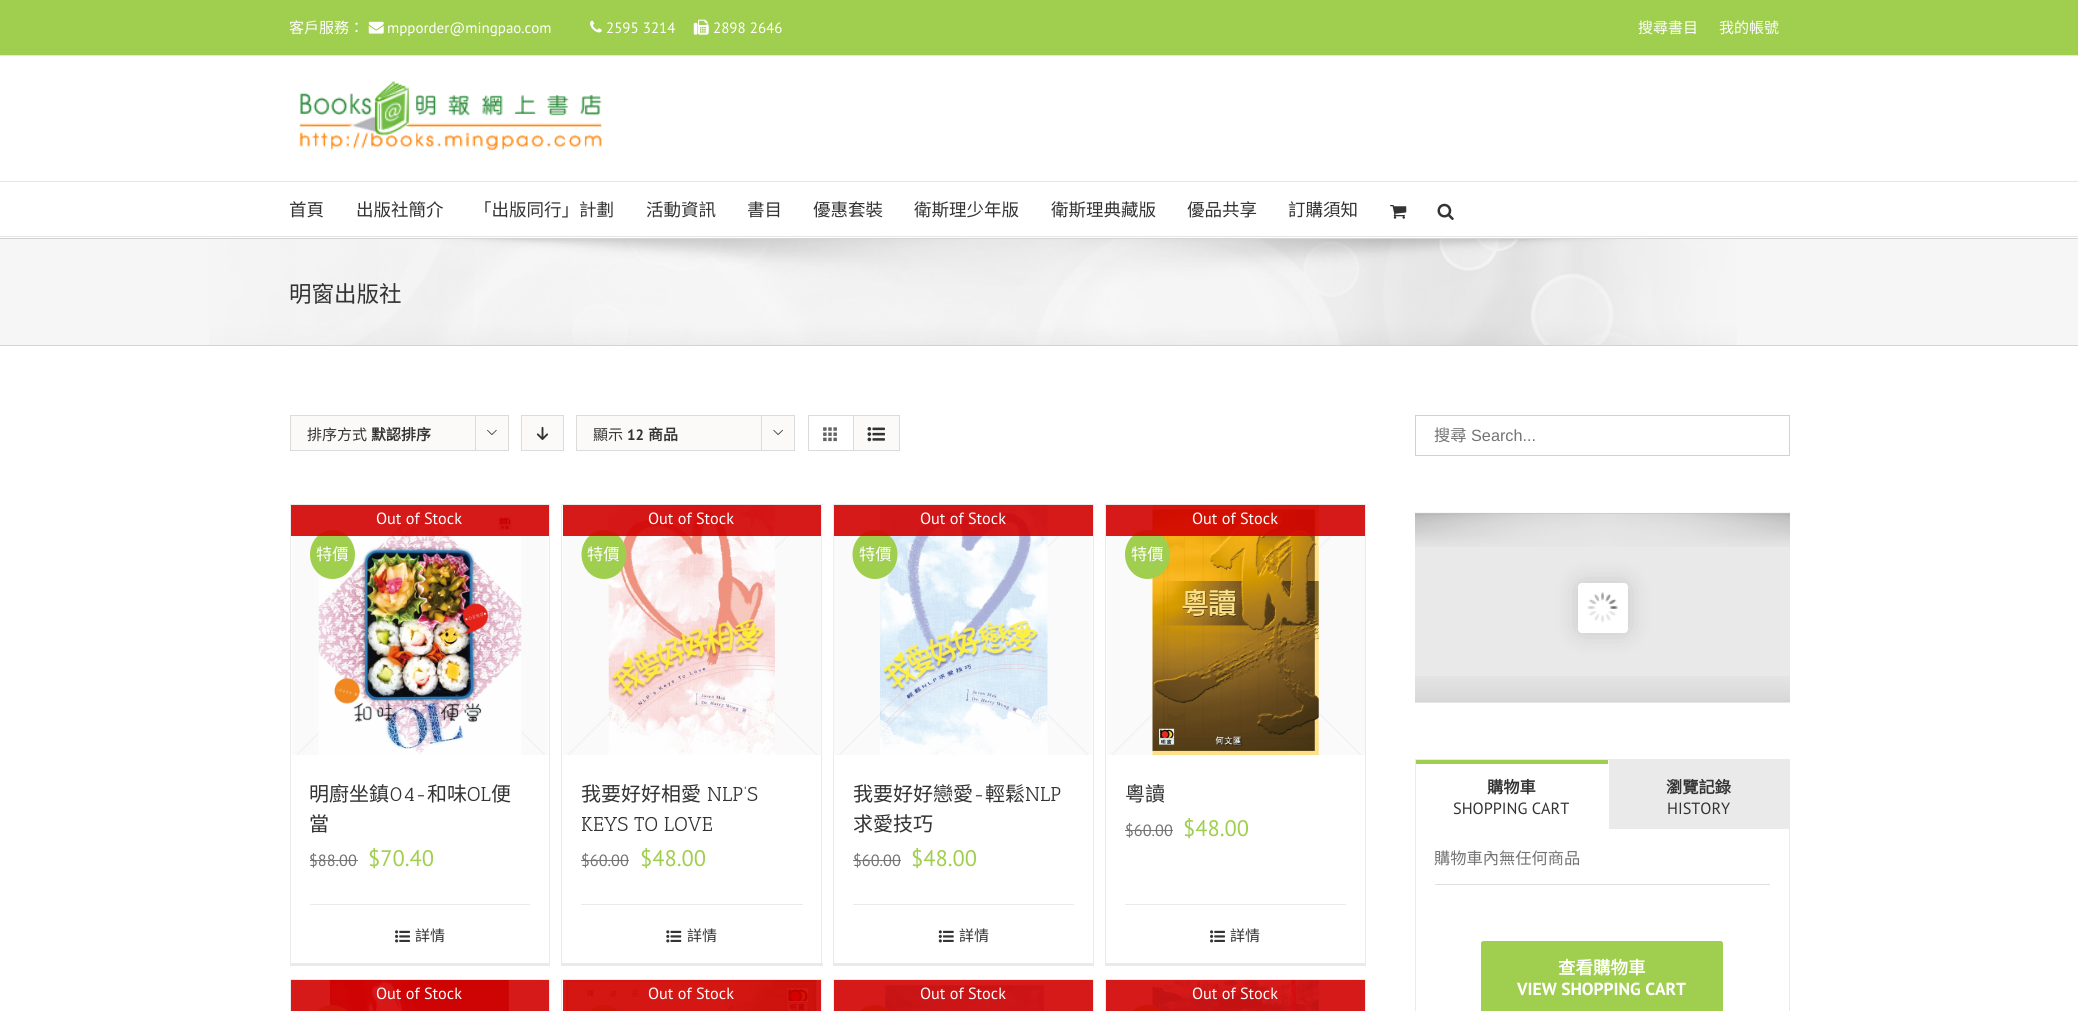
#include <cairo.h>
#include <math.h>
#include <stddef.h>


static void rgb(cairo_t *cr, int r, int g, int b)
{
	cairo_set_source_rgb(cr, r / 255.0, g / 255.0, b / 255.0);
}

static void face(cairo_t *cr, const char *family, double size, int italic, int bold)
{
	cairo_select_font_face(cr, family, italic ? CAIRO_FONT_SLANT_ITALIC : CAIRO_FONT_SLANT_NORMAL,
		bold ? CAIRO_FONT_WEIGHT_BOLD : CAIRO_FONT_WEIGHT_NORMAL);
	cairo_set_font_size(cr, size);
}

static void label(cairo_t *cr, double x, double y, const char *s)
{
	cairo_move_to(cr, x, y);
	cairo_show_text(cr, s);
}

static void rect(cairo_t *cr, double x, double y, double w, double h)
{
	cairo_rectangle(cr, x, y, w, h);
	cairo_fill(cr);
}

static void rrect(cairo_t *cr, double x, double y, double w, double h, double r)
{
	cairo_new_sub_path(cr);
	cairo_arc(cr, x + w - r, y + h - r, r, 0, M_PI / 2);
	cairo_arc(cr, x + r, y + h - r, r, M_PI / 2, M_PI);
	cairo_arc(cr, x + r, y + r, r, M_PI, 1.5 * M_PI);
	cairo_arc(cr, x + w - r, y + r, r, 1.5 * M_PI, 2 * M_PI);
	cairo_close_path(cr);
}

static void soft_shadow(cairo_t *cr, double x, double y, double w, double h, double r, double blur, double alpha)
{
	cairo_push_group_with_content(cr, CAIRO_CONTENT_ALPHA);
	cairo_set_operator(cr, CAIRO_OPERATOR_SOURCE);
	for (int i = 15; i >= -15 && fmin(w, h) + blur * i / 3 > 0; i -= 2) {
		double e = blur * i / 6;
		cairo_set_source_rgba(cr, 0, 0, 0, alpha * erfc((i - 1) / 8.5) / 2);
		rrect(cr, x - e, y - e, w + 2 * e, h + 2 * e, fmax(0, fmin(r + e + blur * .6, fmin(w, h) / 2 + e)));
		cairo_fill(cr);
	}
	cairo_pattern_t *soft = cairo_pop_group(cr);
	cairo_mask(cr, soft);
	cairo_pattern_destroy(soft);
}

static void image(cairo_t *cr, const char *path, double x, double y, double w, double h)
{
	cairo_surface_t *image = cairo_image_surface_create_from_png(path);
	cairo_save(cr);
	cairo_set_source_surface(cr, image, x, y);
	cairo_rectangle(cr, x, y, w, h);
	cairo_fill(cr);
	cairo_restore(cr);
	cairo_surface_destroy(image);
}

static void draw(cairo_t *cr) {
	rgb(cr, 255, 255, 255);
	cairo_paint(cr);
	rgb(cr, 160, 206, 78);
	rect(cr, 0, 0, 2078, 55);
	rgb(cr, 229, 229, 229);
	rect(cr, 0, 55, 2078, 1);
	face(cr, "Noto Sans CJK TC", 15, 0, 0);
	rgb(cr, 255, 255, 255);
	label(cr, 289, 33, "客戶服務：");
	image(cr, "image0.png", 368, 21, 16, 13);
	face(cr, "PT Sans", 15, 0, 0);
	label(cr, 387, 33, "mpporder@mingpao.com");
	image(cr, "image1.png", 590, 20, 12, 13);
	label(cr, 606, 33, "2595 3214");
	image(cr, "image2.png", 693, 19, 16, 16);
	label(cr, 713, 33, "2898 2646");
	face(cr, "Noto Sans CJK TC", 15, 0, 0);
	label(cr, 1638, 33, "搜尋書目");
	label(cr, 1719, 33, "我的帳號");
	rgb(cr, 229, 229, 229);
	rect(cr, 0, 181, 2078, 1);
	image(cr, "image3.png", 299, 81, 303, 70);
	rect(cr, 0, 236, 2078, 1);
	face(cr, "Noto Sans CJK TC", 17.5, 0, 0);
	rgb(cr, 51, 51, 51);
	label(cr, 289, 216, "首頁");
	label(cr, 356, 216, "出版社簡介");
	label(cr, 474, 216, "「出版同行」計劃");
	label(cr, 646, 216, "活動資訊");
	label(cr, 747, 216, "書目");
	label(cr, 813, 216, "優惠套裝");
	label(cr, 914, 216, "衛斯理少年版");
	label(cr, 1051, 216, "衛斯理典藏版");
	label(cr, 1187, 216, "優品共享");
	label(cr, 1288, 216, "訂購須知");
	image(cr, "image4.png", 1390, 205, 17, 14);
	image(cr, "image5.png", 1437, 203, 17, 17);
	rgb(cr, 246, 246, 246);
	rect(cr, 0, 239, 2078, 106);
	image(cr, "image6.png", 209, 239, 1528, 106);
	rgb(cr, 210, 211, 212);
	rect(cr, 0, 238, 2078, 1);
	rect(cr, 0, 345, 2078, 1);
	face(cr, "Noto Sans CJK TC", 22.5, 0, 0);
	rgb(cr, 51, 51, 51);
	label(cr, 289, 302, "明窗出版社");
	rgb(cr, 215, 25, 25);
	rect(cr, 1106, 980, 1, 31);
	rect(cr, 1092, 980, 1, 31);
	rect(cr, 291, 980, 258, 31);
	rgb(cr, 251, 250, 249);
	cairo_rectangle(cr, 290.5, 415.5, 218, 35);
	cairo_fill_preserve(cr);
	rgb(cr, 219, 219, 219);
	cairo_set_line_width(cr, 1);
	cairo_stroke(cr);
	face(cr, "Noto Sans CJK TC", 15, 0, 0);
	rgb(cr, 51, 51, 51);
	label(cr, 307, 440, "排序方式");
	face(cr, "Noto Sans CJK TC", 15, 0, 1);
	label(cr, 371, 440, "默認排序");
	rgb(cr, 219, 219, 219);
	rect(cr, 475, 415, 1, 36);
	image(cr, "image7.png", 487, 429, 10, 6);
	rgb(cr, 251, 250, 249);
	cairo_rectangle(cr, 521.5, 415.5, 42, 35);
	cairo_fill_preserve(cr);
	rgb(cr, 219, 219, 219);
	cairo_stroke(cr);
	image(cr, "image8.png", 536, 426, 13, 14);
	rgb(cr, 251, 250, 249);
	cairo_rectangle(cr, 576.5, 415.5, 218, 35);
	cairo_fill_preserve(cr);
	rgb(cr, 219, 219, 219);
	cairo_stroke(cr);
	face(cr, "Noto Sans CJK TC", 15, 0, 0);
	rgb(cr, 51, 51, 51);
	label(cr, 593, 440, "顯示");
	face(cr, "PT Sans", 15, 0, 1);
	label(cr, 627, 440, "12");
	face(cr, "Noto Sans CJK TC", 15, 0, 1);
	label(cr, 648, 440, "商品");
	rgb(cr, 219, 219, 219);
	rect(cr, 761, 415, 1, 36);
	image(cr, "image9.png", 773, 429, 10, 6);
	cairo_rectangle(cr, 808.5, 415.5, 91, 35);
	cairo_stroke(cr);
	rect(cr, 853, 416, 1, 34);
	image(cr, "image10.png", 823, 427, 14, 15);
	rgb(cr, 251, 250, 249);
	rect(cr, 854, 416, 45, 34);
	image(cr, "image11.png", 867, 427, 18, 15);
	rgb(cr, 235, 234, 234);
	rect(cr, 290, 504, 260, 1);
	rect(cr, 549, 504, 1, 461);
	rect(cr, 290, 963, 260, 3);
	rect(cr, 290, 504, 1, 461);
	image(cr, "image12.png", 292, 505, 256, 250);
	image(cr, "image13.png", 318, 506, 204, 249);
	rgb(cr, 160, 206, 78);
	cairo_new_path(cr);
	cairo_move_to(cr, 332.5, 530);
	cairo_curve_to(cr, 345, 530, 355, 541, 355, 554.5);
	cairo_curve_to(cr, 355, 568, 345, 579, 332.5, 579);
	cairo_curve_to(cr, 320, 579, 310, 568, 310, 554.5);
	cairo_curve_to(cr, 310, 541, 320, 530, 332.5, 530);
	cairo_close_path(cr);
	cairo_fill(cr);
	cairo_set_source_rgba(cr, 0.824, 0, 0, 0.9);
	rect(cr, 291, 505, 258, 31);
	face(cr, "PT Sans", 16.25, 0, 0);
	rgb(cr, 255, 255, 255);
	label(cr, 376, 524, "Out of Stock");
	face(cr, "Noto Sans CJK TC", 16.25, 0, 0);
	label(cr, 316, 560, "特價");
	rgb(cr, 235, 234, 234);
	rect(cr, 310, 904, 220, 1);
	face(cr, "Noto Sans CJK TC", 20, 0, 0);
	rgb(cr, 51, 51, 51);
	label(cr, 309, 801, "明廚坐鎮");
	face(cr, "Antic Slab", 20, 0, 0);
	label(cr, 389, 801, "04-");
	face(cr, "Noto Sans CJK TC", 20, 0, 0);
	label(cr, 427, 801, "和味");
	face(cr, "Antic Slab", 20, 0, 0);
	label(cr, 467, 801, "OL");
	face(cr, "Noto Sans CJK TC", 20, 0, 0);
	label(cr, 491, 801, "便");
	label(cr, 309, 831, "當");
	face(cr, "PT Sans", 16.25, 0, 0);
	rgb(cr, 116, 116, 116);
	label(cr, 309, 866, "$88.00");
	rect(cr, 310, 860, 48, 1);
	face(cr, "PT Sans", 22.5, 0, 0);
	rgb(cr, 160, 206, 78);
	label(cr, 368, 866, "$70.40");
	image(cr, "image14.png", 395, 930, 15, 13);
	face(cr, "Noto Sans CJK TC", 15, 0, 0);
	rgb(cr, 51, 51, 51);
	label(cr, 415, 941, "詳情");
	rgb(cr, 235, 234, 234);
	rect(cr, 561, 504, 262, 1);
	rect(cr, 821, 504, 1, 461);
	rect(cr, 561, 963, 262, 3);
	rect(cr, 561, 504, 1, 461);
	image(cr, "image15.png", 563, 505, 259, 250);
	image(cr, "image16.png", 608, 505, 167, 250);
	rgb(cr, 160, 206, 78);
	cairo_new_path(cr);
	cairo_move_to(cr, 604, 530);
	cairo_curve_to(cr, 616.5, 530, 626.5, 541, 626.5, 554.5);
	cairo_curve_to(cr, 626.5, 568, 616.5, 579, 604, 579);
	cairo_curve_to(cr, 591.5, 579, 581.5, 568, 581.5, 554.5);
	cairo_curve_to(cr, 581.5, 541, 591.5, 530, 604, 530);
	cairo_close_path(cr);
	cairo_fill(cr);
	cairo_set_source_rgba(cr, 0.824, 0, 0, 0.9);
	rect(cr, 563, 505, 258, 31);
	face(cr, "PT Sans", 16.25, 0, 0);
	rgb(cr, 255, 255, 255);
	label(cr, 648, 524, "Out of Stock");
	face(cr, "Noto Sans CJK TC", 16.25, 0, 0);
	label(cr, 587, 560, "特價");
	rgb(cr, 235, 234, 234);
	rect(cr, 581, 904, 222, 1);
	face(cr, "Noto Sans CJK TC", 20, 0, 0);
	rgb(cr, 51, 51, 51);
	label(cr, 581, 801, "我要好好相愛");
	face(cr, "Antic Slab", 20, 0, 0);
	label(cr, 707, 801, "NLP’S");
	label(cr, 581, 831, "KEYS TO LOVE");
	face(cr, "PT Sans", 16.25, 0, 0);
	rgb(cr, 116, 116, 116);
	label(cr, 581, 866, "$60.00");
	rect(cr, 581, 860, 48, 1);
	face(cr, "PT Sans", 22.5, 0, 0);
	rgb(cr, 160, 206, 78);
	label(cr, 640, 866, "$48.00");
	image(cr, "image17.png", 666, 930, 16, 13);
	face(cr, "Noto Sans CJK TC", 15, 0, 0);
	rgb(cr, 51, 51, 51);
	label(cr, 687, 941, "詳情");
	rgb(cr, 235, 234, 234);
	rect(cr, 833, 504, 261, 1);
	rect(cr, 1093, 504, 1, 461);
	rect(cr, 833, 963, 261, 3);
	rect(cr, 833, 504, 1, 461);
	image(cr, "image18.png", 833, 505, 259, 250);
	image(cr, "image19.png", 880, 505, 168, 250);
	rgb(cr, 160, 206, 78);
	cairo_new_path(cr);
	cairo_move_to(cr, 875, 530);
	cairo_curve_to(cr, 887.5, 530, 897.5, 541, 897.5, 554.5);
	cairo_curve_to(cr, 897.5, 568, 887.5, 579, 875, 579);
	cairo_curve_to(cr, 862.5, 579, 852.5, 568, 852.5, 554.5);
	cairo_curve_to(cr, 852.5, 541, 862.5, 530, 875, 530);
	cairo_close_path(cr);
	cairo_fill(cr);
	cairo_set_source_rgba(cr, 0.824, 0, 0, 0.9);
	rect(cr, 834, 505, 259, 31);
	face(cr, "PT Sans", 16.25, 0, 0);
	rgb(cr, 255, 255, 255);
	label(cr, 920, 524, "Out of Stock");
	face(cr, "Noto Sans CJK TC", 16.25, 0, 0);
	label(cr, 859, 560, "特價");
	rgb(cr, 235, 234, 234);
	rect(cr, 853, 904, 221, 1);
	face(cr, "Noto Sans CJK TC", 20, 0, 0);
	rgb(cr, 51, 51, 51);
	label(cr, 853, 801, "我要好好戀愛");
	face(cr, "Antic Slab", 20, 0, 0);
	label(cr, 973, 801, "-");
	face(cr, "Noto Sans CJK TC", 20, 0, 0);
	label(cr, 985, 801, "輕鬆");
	face(cr, "Antic Slab", 20, 0, 0);
	label(cr, 1025, 801, "NLP");
	face(cr, "Noto Sans CJK TC", 20, 0, 0);
	label(cr, 853, 831, "求愛技巧");
	face(cr, "PT Sans", 16.25, 0, 0);
	rgb(cr, 116, 116, 116);
	label(cr, 853, 866, "$60.00");
	rect(cr, 853, 860, 48, 1);
	face(cr, "PT Sans", 22.5, 0, 0);
	rgb(cr, 160, 206, 78);
	label(cr, 911, 866, "$48.00");
	image(cr, "image20.png", 938, 930, 16, 13);
	face(cr, "Noto Sans CJK TC", 15, 0, 0);
	rgb(cr, 51, 51, 51);
	label(cr, 959, 941, "詳情");
	rgb(cr, 235, 234, 234);
	rect(cr, 1105, 504, 261, 1);
	rect(cr, 1365, 504, 1, 461);
	rect(cr, 1105, 963, 261, 3);
	rect(cr, 1105, 504, 1, 461);
	image(cr, "image21.png", 1107, 505, 258, 250);
	image(cr, "image22.png", 1152, 505, 167, 250);
	rgb(cr, 160, 206, 78);
	cairo_new_path(cr);
	cairo_move_to(cr, 1147.5, 530);
	cairo_curve_to(cr, 1160, 530, 1170, 541, 1170, 554.5);
	cairo_curve_to(cr, 1170, 568, 1160, 579, 1147.5, 579);
	cairo_curve_to(cr, 1135, 579, 1125, 568, 1125, 554.5);
	cairo_curve_to(cr, 1125, 541, 1135, 530, 1147.5, 530);
	cairo_close_path(cr);
	cairo_fill(cr);
	cairo_set_source_rgba(cr, 0.824, 0, 0, 0.9);
	rect(cr, 1106, 505, 259, 31);
	face(cr, "PT Sans", 16.25, 0, 0);
	rgb(cr, 255, 255, 255);
	label(cr, 1192, 524, "Out of Stock");
	face(cr, "Noto Sans CJK TC", 16.25, 0, 0);
	label(cr, 1131, 560, "特價");
	rgb(cr, 235, 234, 234);
	rect(cr, 1125, 904, 221, 1);
	face(cr, "Noto Sans CJK TC", 20, 0, 0);
	rgb(cr, 51, 51, 51);
	label(cr, 1125, 801, "粵讀");
	face(cr, "PT Sans", 16.25, 0, 0);
	rgb(cr, 116, 116, 116);
	label(cr, 1125, 836, "$60.00");
	rect(cr, 1125, 830, 48, 1);
	face(cr, "PT Sans", 22.5, 0, 0);
	rgb(cr, 160, 206, 78);
	label(cr, 1183, 836, "$48.00");
	image(cr, "image14.png", 1210, 930, 15, 13);
	face(cr, "Noto Sans CJK TC", 15, 0, 0);
	rgb(cr, 51, 51, 51);
	label(cr, 1230, 941, "詳情");
	rgb(cr, 235, 234, 234);
	rect(cr, 290, 979, 260, 1);
	rect(cr, 549, 979, 1, 32);
	rect(cr, 290, 979, 1, 32);
	image(cr, "image23.png", 292, 980, 256, 31);
	image(cr, "image24.png", 330, 980, 179, 31);
	face(cr, "PT Sans", 16.25, 0, 0);
	rgb(cr, 255, 255, 255);
	label(cr, 376, 999, "Out of Stock");
	rgb(cr, 205, 21, 8);
	cairo_new_path(cr);
	cairo_move_to(cr, 332.5, 1005);
	cairo_curve_to(cr, 345, 1005, 355, 1016, 355, 1029.5);
	cairo_curve_to(cr, 355, 1043, 345, 1054, 332.5, 1054);
	cairo_curve_to(cr, 320, 1054, 310, 1043, 310, 1029.5);
	cairo_curve_to(cr, 310, 1016, 320, 1005, 332.5, 1005);
	cairo_close_path(cr);
	cairo_fill(cr);
	rgb(cr, 235, 234, 234);
	rect(cr, 561, 979, 262, 1);
	rect(cr, 821, 979, 1, 32);
	rect(cr, 561, 979, 1, 32);
	image(cr, "image25.png", 563, 980, 259, 31);
	image(cr, "image26.png", 566, 980, 251, 31);
	rgb(cr, 255, 255, 255);
	label(cr, 648, 999, "Out of Stock");
	rgb(cr, 205, 21, 8);
	cairo_new_path(cr);
	cairo_move_to(cr, 604, 1005);
	cairo_curve_to(cr, 616.5, 1005, 626.5, 1016, 626.5, 1029.5);
	cairo_curve_to(cr, 626.5, 1043, 616.5, 1054, 604, 1054);
	cairo_curve_to(cr, 591.5, 1054, 581.5, 1043, 581.5, 1029.5);
	cairo_curve_to(cr, 581.5, 1016, 591.5, 1005, 604, 1005);
	cairo_close_path(cr);
	cairo_fill(cr);
	rgb(cr, 235, 234, 234);
	rect(cr, 833, 979, 261, 1);
	rect(cr, 1093, 979, 1, 32);
	rect(cr, 833, 979, 1, 32);
	image(cr, "image27.png", 833, 980, 259, 31);
	image(cr, "image28.png", 884, 980, 161, 31);
	rgb(cr, 255, 255, 255);
	label(cr, 920, 999, "Out of Stock");
	rgb(cr, 205, 21, 8);
	cairo_new_path(cr);
	cairo_move_to(cr, 875, 1005);
	cairo_curve_to(cr, 887.5, 1005, 897.5, 1016, 897.5, 1029.5);
	cairo_curve_to(cr, 897.5, 1043, 887.5, 1054, 875, 1054);
	cairo_curve_to(cr, 862.5, 1054, 852.5, 1043, 852.5, 1029.5);
	cairo_curve_to(cr, 852.5, 1016, 862.5, 1005, 875, 1005);
	cairo_close_path(cr);
	cairo_fill(cr);
	rgb(cr, 235, 234, 234);
	rect(cr, 1105, 979, 261, 1);
	rect(cr, 1365, 979, 1, 32);
	rect(cr, 1105, 979, 1, 32);
	image(cr, "image29.png", 1107, 980, 258, 31);
	image(cr, "image30.png", 1152, 980, 167, 31);
	rgb(cr, 255, 255, 255);
	label(cr, 1192, 999, "Out of Stock");
	rgb(cr, 205, 21, 8);
	cairo_new_path(cr);
	cairo_move_to(cr, 1147.5, 1005);
	cairo_curve_to(cr, 1160, 1005, 1170, 1016, 1170, 1029.5);
	cairo_curve_to(cr, 1170, 1043, 1160, 1054, 1147.5, 1054);
	cairo_curve_to(cr, 1135, 1054, 1125, 1043, 1125, 1029.5);
	cairo_curve_to(cr, 1125, 1016, 1135, 1005, 1147.5, 1005);
	cairo_close_path(cr);
	cairo_fill(cr);
	cairo_rectangle(cr, 1415.5, 415.5, 374, 40);
	rgb(cr, 210, 210, 210);
	cairo_stroke(cr);
	face(cr, "Noto Sans CJK TC", 16.25, 0, 0);
	rgb(cr, 116, 116, 116);
	label(cr, 1434, 441, "搜尋");
	face(cr, "Liberation Sans", 16.25, 0, 0);
	label(cr, 1471, 441, "Search...");
	rgb(cr, 233, 233, 233);
	rect(cr, 1415, 514, 375, 189);
	rgb(cr, 210, 211, 212);
	rect(cr, 1415, 513, 375, 1);
	rect(cr, 1415, 701, 375, 1);
	image(cr, "image31.png", 1415, 512, 375, 35);
	rgb(cr, 0, 0, 0);
	soft_shadow(cr, 1578, 583, 50, 50, 4, 12.5, 0.15);
	rgb(cr, 255, 255, 255);
	rrect(cr, 1578, 583, 50, 50, 4);
	cairo_fill(cr);
	image(cr, "image32.png", 1587, 592, 31, 31);
	image(cr, "image33.png", 1415, 676, 375, 25);
	rgb(cr, 235, 234, 234);
	rect(cr, 1415, 759, 375, 1);
	rect(cr, 1789, 828, 1, 183);
	rect(cr, 1789, 759, 1, 70);
	rect(cr, 1415, 828, 1, 183);
	rect(cr, 1415, 759, 1, 70);
	rgb(cr, 160, 206, 78);
	rect(cr, 1416, 760, 192, 4);
	face(cr, "Noto Sans CJK TC", 16.25, 0, 1);
	rgb(cr, 51, 51, 51);
	label(cr, 1487, 793, "購物車");
	face(cr, "PT Sans", 16.25, 0, 0);
	label(cr, 1453, 814, "SHOPPING CART");
	rgb(cr, 235, 234, 234);
	rect(cr, 1609, 760, 180, 69);
	face(cr, "Noto Sans CJK TC", 16.25, 0, 1);
	rgb(cr, 51, 51, 51);
	label(cr, 1666, 793, "瀏覽記錄");
	face(cr, "PT Sans", 16.25, 0, 0);
	label(cr, 1667, 814, "HISTORY");
	rgb(cr, 224, 222, 222);
	rect(cr, 1435, 884, 335, 1);
	face(cr, "Noto Sans CJK TC", 16.25, 0, 0);
	rgb(cr, 116, 116, 116);
	label(cr, 1434, 864, "購物車內無任何商品");
	rgb(cr, 160, 206, 78);
	rrect(cr, 1481, 941, 242, 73, 2.5);
	cairo_fill(cr);
	face(cr, "Noto Sans CJK TC", 17.5, 0, 1);
	rgb(cr, 255, 255, 255);
	label(cr, 1558, 974, "查看購物車");
	face(cr, "PT Sans", 17.5, 0, 1);
	label(cr, 1517, 995, "VIEW SHOPPING CART");
}

int main(void) {
	cairo_surface_t *surface = cairo_image_surface_create(CAIRO_FORMAT_RGB24, 2078, 1011);
	cairo_t *cr = cairo_create(surface);
	cairo_font_options_t *options = cairo_font_options_create();
	cairo_font_options_set_hint_metrics(options, CAIRO_HINT_METRICS_OFF);
	cairo_font_options_set_hint_style(options, CAIRO_HINT_STYLE_NONE);
	cairo_set_font_options(cr, options);
	cairo_set_miter_limit(cr, 4);
	draw(cr);
	cairo_surface_write_to_png(surface, "render.png");
	cairo_font_options_destroy(options);
	cairo_destroy(cr);
	cairo_surface_destroy(surface);
	return 0;
}
